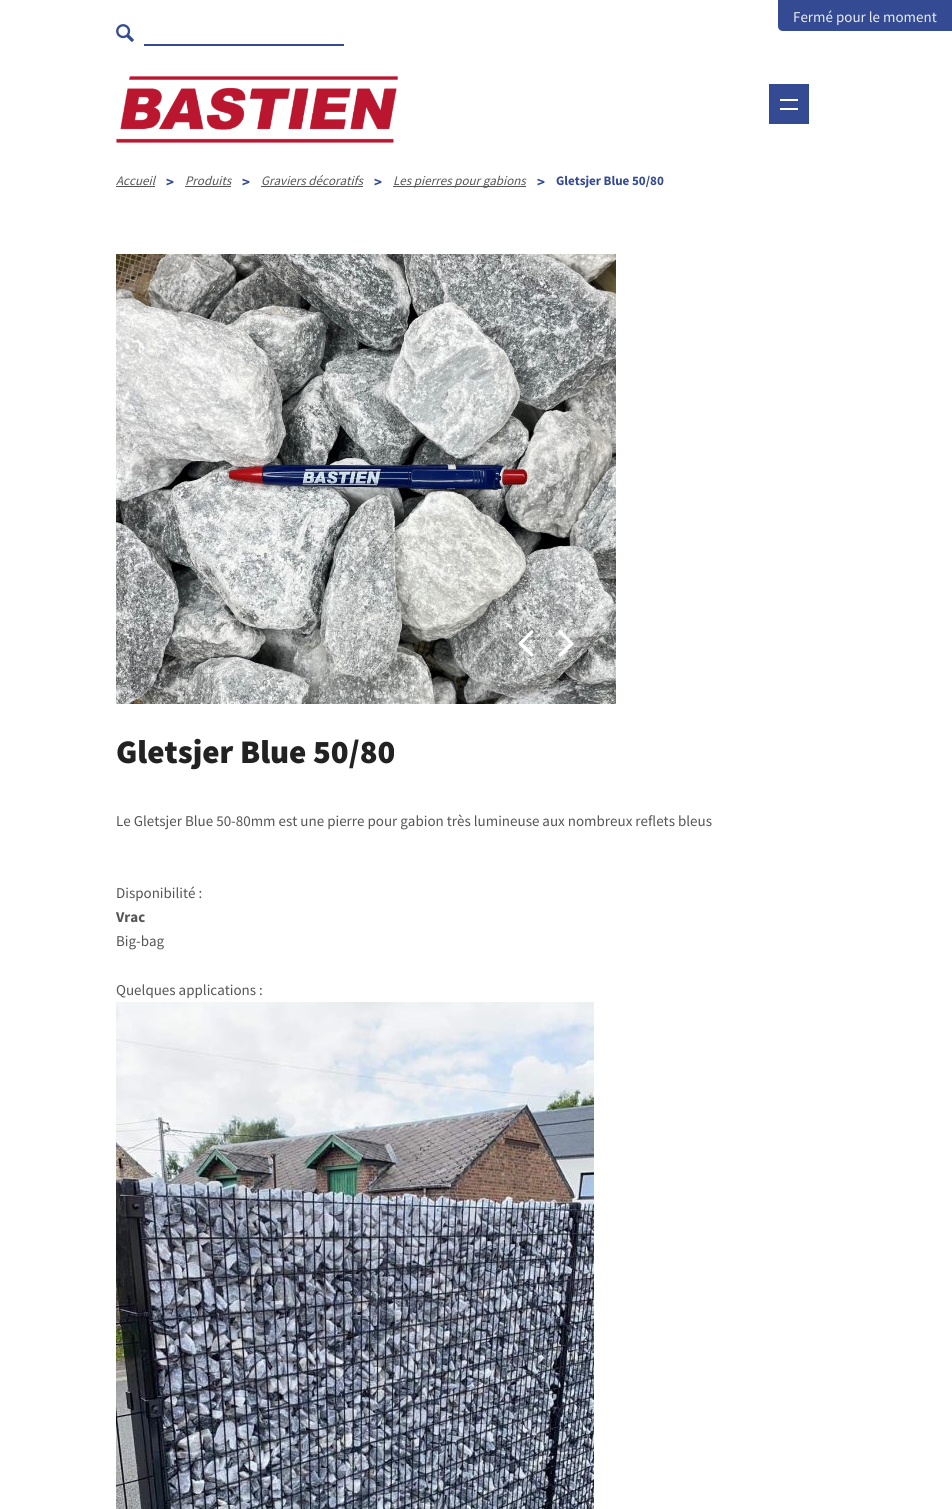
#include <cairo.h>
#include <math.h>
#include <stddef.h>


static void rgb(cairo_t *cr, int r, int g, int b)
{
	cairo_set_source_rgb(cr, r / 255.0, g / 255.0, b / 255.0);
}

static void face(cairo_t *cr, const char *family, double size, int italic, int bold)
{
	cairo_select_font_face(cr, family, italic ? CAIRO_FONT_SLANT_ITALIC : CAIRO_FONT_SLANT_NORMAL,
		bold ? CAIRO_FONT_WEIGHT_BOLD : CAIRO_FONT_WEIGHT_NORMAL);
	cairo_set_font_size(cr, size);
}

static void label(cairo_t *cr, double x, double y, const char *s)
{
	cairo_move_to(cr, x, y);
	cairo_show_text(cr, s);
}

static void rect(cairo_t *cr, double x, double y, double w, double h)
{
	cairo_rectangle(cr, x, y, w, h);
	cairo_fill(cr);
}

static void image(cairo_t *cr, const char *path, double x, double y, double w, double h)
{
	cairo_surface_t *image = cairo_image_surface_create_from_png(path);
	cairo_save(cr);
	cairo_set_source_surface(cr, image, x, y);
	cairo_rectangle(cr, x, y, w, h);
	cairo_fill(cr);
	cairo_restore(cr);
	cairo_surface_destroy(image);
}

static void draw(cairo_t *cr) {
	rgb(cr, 255, 255, 255);
	cairo_paint(cr);
	rgb(cr, 52, 74, 147);
	cairo_new_path(cr);
	cairo_move_to(cr, 778, 0);
	cairo_line_to(cr, 952, 0);
	cairo_line_to(cr, 952, 31);
	cairo_line_to(cr, 783, 31);
	cairo_curve_to(cr, 780, 31, 778, 29, 778, 26);
	cairo_close_path(cr);
	cairo_fill(cr);
	face(cr, "Source Sans Pro", 15, 0, 0);
	rgb(cr, 235, 237, 244);
	label(cr, 793, 22, "Fermé pour le moment");
	image(cr, "image0.png", 116, 24, 18, 18);
	rgb(cr, 52, 74, 147);
	rect(cr, 144, 44, 200, 2);
	image(cr, "image1.png", 116, 76, 282, 67);
	rect(cr, 769, 84, 40, 40);
	rgb(cr, 255, 255, 255);
	rect(cr, 780, 99, 18, 2);
	rect(cr, 780, 108, 18, 2);
	face(cr, "Source Sans Pro", 13, 1, 0);
	rgb(cr, 85, 85, 85);
	label(cr, 116, 185, "Accueil");
	rect(cr, 116, 186, 39, 1);
	face(cr, "Source Sans Pro", 15, 0, 1);
	rgb(cr, 52, 74, 147);
	label(cr, 166, 187, ">");
	face(cr, "Source Sans Pro", 13, 1, 0);
	rgb(cr, 85, 85, 85);
	label(cr, 185, 185, "Produits");
	rect(cr, 185, 186, 46, 1);
	face(cr, "Source Sans Pro", 15, 0, 1);
	rgb(cr, 52, 74, 147);
	label(cr, 242, 187, ">");
	face(cr, "Source Sans Pro", 13, 1, 0);
	rgb(cr, 85, 85, 85);
	label(cr, 261, 185, "Graviers décoratifs");
	rect(cr, 261, 186, 102, 1);
	face(cr, "Source Sans Pro", 15, 0, 1);
	rgb(cr, 52, 74, 147);
	label(cr, 374, 187, ">");
	rgb(cr, 85, 85, 85);
	rect(cr, 393, 186, 133, 1);
	face(cr, "Source Sans Pro", 13, 1, 0);
	label(cr, 393, 185, "Les pierres pour gabions");
	face(cr, "Source Sans Pro", 15, 0, 1);
	rgb(cr, 52, 74, 147);
	label(cr, 537, 187, ">");
	face(cr, "Source Sans Pro", 13, 0, 1);
	label(cr, 556, 185, "Gletsjer Blue 50/80");
	image(cr, "image2.png", 116, 254, 500, 450);
	image(cr, "image3.png", 518, 630, 16, 27);
	image(cr, "image4.png", 558, 630, 16, 27);
	face(cr, "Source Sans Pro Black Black", 33, 0, 0);
	rgb(cr, 34, 34, 34);
	label(cr, 116, 763, "Gletsjer Blue 50/80");
	face(cr, "Source Sans Pro", 15, 0, 0);
	rgb(cr, 85, 85, 85);
	label(cr, 116, 826, "Le Gletsjer Blue 50-80mm est une pierre pour gabion très lumineuse aux nombreux reflets bleus");
	label(cr, 116, 898, "Disponibilité :");
	face(cr, "Source Sans Pro", 15, 0, 1);
	label(cr, 116, 922, "Vrac");
	face(cr, "Source Sans Pro", 15, 0, 0);
	label(cr, 116, 946, "Big-bag");
	label(cr, 116, 995, "Quelques applications :");
	image(cr, "image5.png", 116, 1002, 478, 507);
}

int main(void) {
	cairo_surface_t *surface = cairo_image_surface_create(CAIRO_FORMAT_RGB24, 952, 1509);
	cairo_t *cr = cairo_create(surface);
	cairo_font_options_t *options = cairo_font_options_create();
	cairo_font_options_set_hint_metrics(options, CAIRO_HINT_METRICS_OFF);
	cairo_font_options_set_hint_style(options, CAIRO_HINT_STYLE_NONE);
	cairo_set_font_options(cr, options);
	cairo_set_miter_limit(cr, 4);
	draw(cr);
	cairo_surface_write_to_png(surface, "render.png");
	cairo_font_options_destroy(options);
	cairo_destroy(cr);
	cairo_surface_destroy(surface);
	return 0;
}
